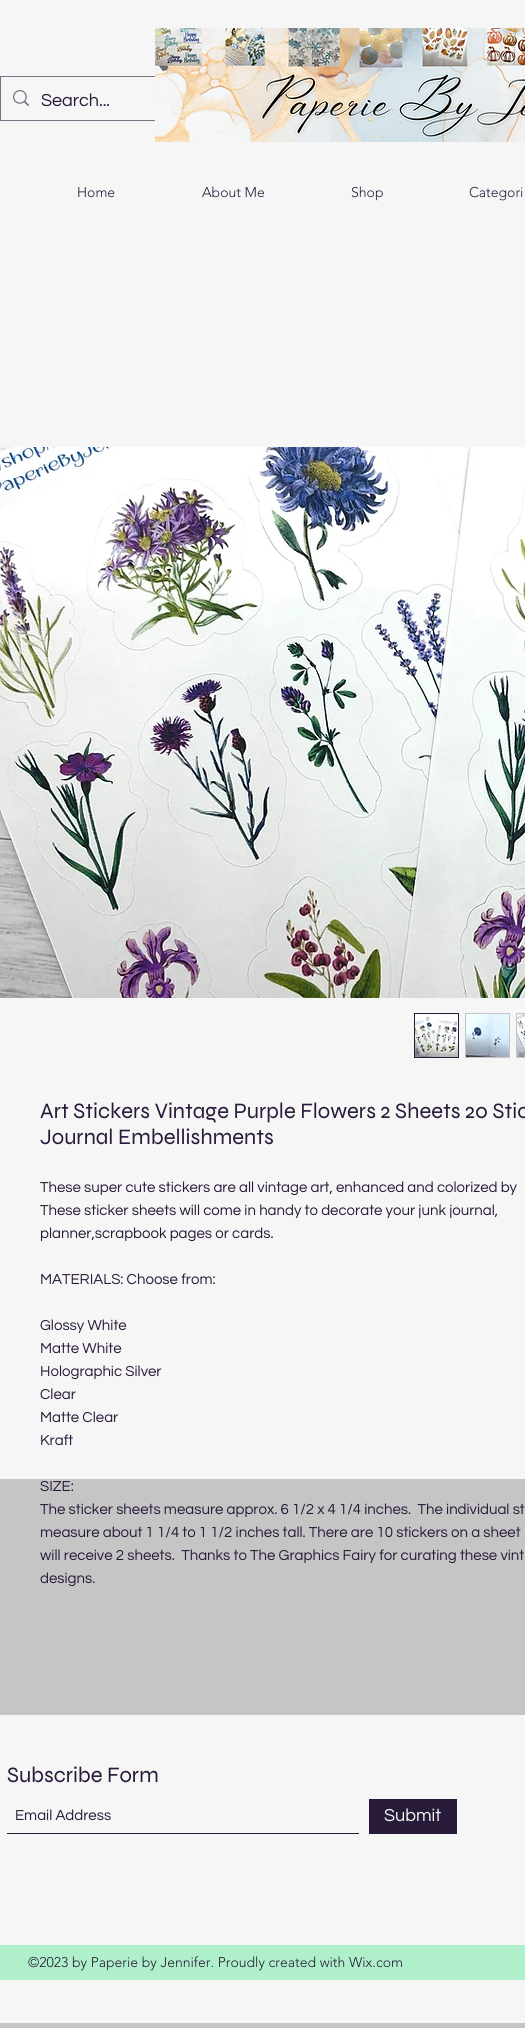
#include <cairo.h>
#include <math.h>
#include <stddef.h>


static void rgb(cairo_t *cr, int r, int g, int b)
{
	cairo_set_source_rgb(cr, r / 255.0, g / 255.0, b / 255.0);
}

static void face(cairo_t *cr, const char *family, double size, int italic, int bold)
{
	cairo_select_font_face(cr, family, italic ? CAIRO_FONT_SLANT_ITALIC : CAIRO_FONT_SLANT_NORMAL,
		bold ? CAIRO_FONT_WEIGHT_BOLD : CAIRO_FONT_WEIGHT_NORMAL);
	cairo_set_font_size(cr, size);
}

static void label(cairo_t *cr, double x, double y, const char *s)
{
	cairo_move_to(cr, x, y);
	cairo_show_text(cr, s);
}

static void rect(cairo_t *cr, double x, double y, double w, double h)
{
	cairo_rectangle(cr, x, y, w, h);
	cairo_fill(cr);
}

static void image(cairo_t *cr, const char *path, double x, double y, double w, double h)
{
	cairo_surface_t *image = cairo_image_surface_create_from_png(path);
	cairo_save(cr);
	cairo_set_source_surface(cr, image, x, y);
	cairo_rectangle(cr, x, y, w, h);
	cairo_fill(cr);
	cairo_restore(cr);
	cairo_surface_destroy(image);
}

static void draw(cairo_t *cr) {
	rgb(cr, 197, 197, 197);
	cairo_paint(cr);
	rgb(cr, 246, 246, 246);
	rect(cr, 0, 0, 525, 1479);
	cairo_rectangle(cr, 0.5, 76.5, 260, 44);
	rgb(cr, 122, 114, 133);
	cairo_set_line_width(cr, 1);
	cairo_stroke(cr);
	image(cr, "image0.png", 13, 90, 16, 17);
	face(cr, "Questrial", 18, 0, 0);
	rgb(cr, 40, 26, 57);
	label(cr, 41, 106, "Search...");
	image(cr, "image1.png", 155, 28, 370, 114);
	face(cr, "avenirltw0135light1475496 Light", 14, 0, 0);
	label(cr, 77, 197, "Home");
	label(cr, 202, 197, "About Me");
	label(cr, 351, 197, "Shop");
	label(cr, 469, 197, "Categori");
	image(cr, "image2.png", 0, 447, 525, 551);
	cairo_rectangle(cr, 414.5, 1013.5, 44, 44);
	cairo_stroke(cr);
	image(cr, "image3.png", 415, 1014, 43, 43);
	rgb(cr, 197, 197, 197);
	rect(cr, 465, 1013, 45, 45);
	image(cr, "image4.png", 466, 1014, 43, 43);
	rect(cr, 516, 1013, 9, 45);
	image(cr, "image5.png", 517, 1014, 8, 43);
	face(cr, "Syne", 22, 0, 0);
	rgb(cr, 40, 26, 57);
	label(cr, 40, 1118, "Art Stickers Vintage Purple Flowers 2 Sheets 20 Stic");
	label(cr, 40, 1144, "Journal Embellishments");
	face(cr, "Questrial", 15, 0, 0);
	label(cr, 40, 1192, "These super cute stickers are all vintage art, enhanced and colorized by");
	label(cr, 40, 1215, "These sticker sheets will come in handy to decorate your junk journal,");
	label(cr, 40, 1238, "planner,scrapbook pages or cards.");
	label(cr, 40, 1284, "MATERIALS: Choose from:");
	label(cr, 40, 1330, "Glossy White");
	label(cr, 40, 1353, "Matte White");
	label(cr, 40, 1376, "Holographic Silver");
	label(cr, 40, 1399, "Clear");
	label(cr, 40, 1422, "Matte Clear");
	label(cr, 40, 1445, "Kraft");
	label(cr, 40, 1491, "SIZE:");
	label(cr, 40, 1514, "The sticker sheets measure approx. 6 1/2 x 4 1/4 inches.  The individual st");
	label(cr, 40, 1537, "measure about 1 1/4 to 1 1/2 inches tall. There are 10 stickers on a sheet");
	label(cr, 40, 1560, "will receive 2 sheets.  Thanks to The Graphics Fairy for curating these vint");
	label(cr, 40, 1583, "designs.");
	rgb(cr, 246, 246, 246);
	rect(cr, 0, 1715, 525, 308);
	face(cr, "Syne", 22, 0, 0);
	rgb(cr, 40, 26, 57);
	label(cr, 7, 1782, "Subscribe Form");
	rect(cr, 7, 1833, 352, 1);
	face(cr, "Questrial", 15, 0, 0);
	label(cr, 15, 1820, "Email Address");
	rect(cr, 369, 1799, 88, 35);
	face(cr, "Questrial", 18, 0, 0);
	rgb(cr, 246, 246, 246);
	label(cr, 384, 1821, "Submit");
	rgb(cr, 175, 240, 202);
	rect(cr, 0, 1945, 525, 35);
	face(cr, "avenirltw0135light1475496 Light", 14, 0, 0);
	rgb(cr, 40, 26, 57);
	label(cr, 28, 1967, "©2023 by Paperie by Jennifer. Proudly created with Wix.com");
}

int main(void) {
	cairo_surface_t *surface = cairo_image_surface_create(CAIRO_FORMAT_RGB24, 525, 2028);
	cairo_t *cr = cairo_create(surface);
	cairo_font_options_t *options = cairo_font_options_create();
	cairo_font_options_set_hint_metrics(options, CAIRO_HINT_METRICS_OFF);
	cairo_font_options_set_hint_style(options, CAIRO_HINT_STYLE_NONE);
	cairo_set_font_options(cr, options);
	cairo_set_miter_limit(cr, 4);
	draw(cr);
	cairo_surface_write_to_png(surface, "render.png");
	cairo_font_options_destroy(options);
	cairo_destroy(cr);
	cairo_surface_destroy(surface);
	return 0;
}
